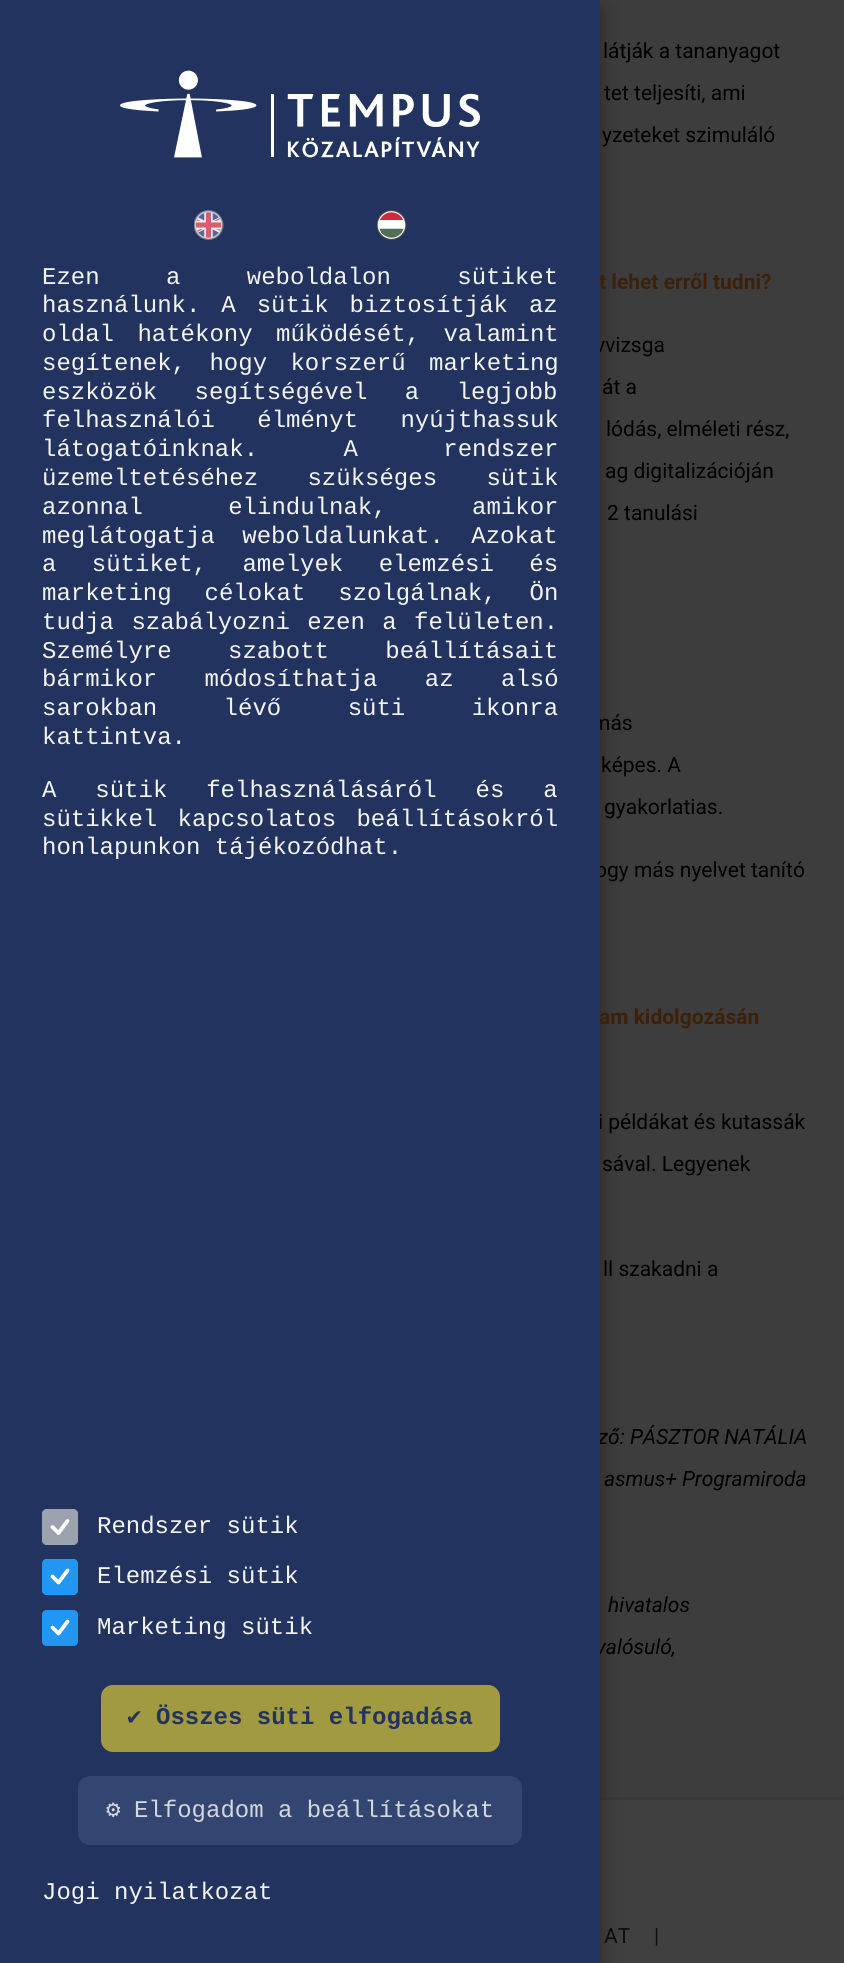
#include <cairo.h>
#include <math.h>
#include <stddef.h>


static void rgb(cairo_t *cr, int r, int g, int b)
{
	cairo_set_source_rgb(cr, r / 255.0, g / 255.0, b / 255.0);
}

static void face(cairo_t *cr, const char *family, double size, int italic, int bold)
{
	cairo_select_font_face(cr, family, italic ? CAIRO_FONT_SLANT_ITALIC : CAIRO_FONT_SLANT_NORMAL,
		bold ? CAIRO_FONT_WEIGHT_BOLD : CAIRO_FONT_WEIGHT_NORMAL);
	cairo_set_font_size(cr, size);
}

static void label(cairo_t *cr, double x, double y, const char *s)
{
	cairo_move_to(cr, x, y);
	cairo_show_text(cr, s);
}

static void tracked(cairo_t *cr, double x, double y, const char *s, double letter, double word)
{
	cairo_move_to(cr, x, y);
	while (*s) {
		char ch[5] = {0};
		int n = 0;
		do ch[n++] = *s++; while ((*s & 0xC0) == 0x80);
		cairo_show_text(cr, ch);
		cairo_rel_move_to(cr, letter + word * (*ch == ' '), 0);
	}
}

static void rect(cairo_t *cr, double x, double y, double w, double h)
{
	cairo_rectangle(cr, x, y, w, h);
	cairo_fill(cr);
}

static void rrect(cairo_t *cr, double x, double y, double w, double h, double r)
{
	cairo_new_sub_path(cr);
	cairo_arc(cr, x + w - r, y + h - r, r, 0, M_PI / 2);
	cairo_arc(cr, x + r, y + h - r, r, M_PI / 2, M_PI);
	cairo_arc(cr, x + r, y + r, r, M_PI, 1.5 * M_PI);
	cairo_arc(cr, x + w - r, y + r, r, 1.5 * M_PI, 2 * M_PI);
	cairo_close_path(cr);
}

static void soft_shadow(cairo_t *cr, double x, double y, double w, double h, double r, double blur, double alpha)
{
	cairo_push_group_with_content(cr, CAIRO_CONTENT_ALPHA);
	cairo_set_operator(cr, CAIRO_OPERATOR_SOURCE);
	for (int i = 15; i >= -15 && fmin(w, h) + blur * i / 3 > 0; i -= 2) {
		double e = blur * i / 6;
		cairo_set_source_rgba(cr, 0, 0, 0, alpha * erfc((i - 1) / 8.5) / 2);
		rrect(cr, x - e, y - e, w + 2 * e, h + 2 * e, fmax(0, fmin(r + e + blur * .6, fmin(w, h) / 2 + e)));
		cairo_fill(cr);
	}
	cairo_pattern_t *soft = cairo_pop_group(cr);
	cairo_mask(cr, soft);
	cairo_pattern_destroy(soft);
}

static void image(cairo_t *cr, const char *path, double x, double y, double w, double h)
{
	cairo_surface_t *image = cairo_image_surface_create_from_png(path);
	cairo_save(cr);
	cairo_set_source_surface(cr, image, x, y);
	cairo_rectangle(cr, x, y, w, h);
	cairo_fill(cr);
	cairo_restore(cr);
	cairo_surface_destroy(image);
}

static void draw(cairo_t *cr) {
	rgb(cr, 64, 64, 64);
	cairo_paint(cr);
	rgb(cr, 61, 61, 61);
	rect(cr, 600, 0, 244, 1797);
	rgb(cr, 57, 57, 57);
	rect(cr, 600, 1797, 244, 3);
	rgb(cr, 0, 0, 0);
	soft_shadow(cr, 0, 8, 600, 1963, 0, 11, 0.35);
	face(cr, "Roboto", 21, 0, 1);
	rgb(cr, 60, 33, 8);
	label(cr, 599, 289, "t lehet erről tudni?");
	face(cr, "Roboto", 21, 0, 0);
	rgb(cr, 0, 0, 0);
	label(cr, 595, 352, "vvizsga");
	label(cr, 592, 730, "más");
	label(cr, 595, 877, "ogy más nyelvet tanító");
	face(cr, "Roboto", 21, 0, 1);
	rgb(cr, 60, 33, 8);
	label(cr, 599, 1024, "am kidolgozásán");
	face(cr, "Roboto", 21, 0, 0);
	rgb(cr, 0, 0, 0);
	label(cr, 598, 1129, "i példákat és kutassák");
	face(cr, "Roboto", 21, 1, 0);
	label(cr, 598, 1444, "ző: PÁSZTOR NATÁLIA");
	label(cr, 596, 1654, "valósuló,");
	rgb(cr, 33, 51, 94);
	rect(cr, 0, 0, 600, 1963);
	image(cr, "image0.png", 120, 70, 360, 88);
	image(cr, "image1.png", 194, 210, 30, 30);
	image(cr, "image2.png", 377, 210, 30, 30);
	face(cr, "Liberation Mono", 24, 0, 0);
	rgb(cr, 244, 244, 245);
	tracked(cr, 42, 284, "Ezen a weboldalon sütiket", 0, 52);
	tracked(cr, 42, 312, "használunk. A sütik biztosítják az", 0, 6.5);
	tracked(cr, 42, 341, "oldal hatékony működését, valamint", 0, 9);
	tracked(cr, 42, 370, "segítenek, hogy korszerű marketing", 0, 9);
	tracked(cr, 42, 399, "eszközök segítségével a legjobb", 0, 23);
	tracked(cr, 42, 427, "felhasználói élményt nyújthassuk", 0, 28);
	tracked(cr, 42, 456, "látogatóinknak. A rendszer", 0, 71);
	tracked(cr, 42, 485, "üzemeltetéséhez szükséges sütik", 0, 35);
	tracked(cr, 42, 514, "azonnal elindulnak, amikor", 0, 71);
	tracked(cr, 42, 543, "meglátogatja weboldalunkat. Azokat", 0, 13);
	tracked(cr, 42, 571, "a sütiket, amelyek elemzési és", 0, 21);
	tracked(cr, 42, 600, "marketing célokat szolgálnak, Ön", 0, 18.5);
	tracked(cr, 42, 629, "tudja szabályozni ezen a felületen.", 0, 3);
	tracked(cr, 42, 658, "Személyre szabott beállításait", 0, 42);
	tracked(cr, 42, 686, "bármikor módosíthatja az alsó", 0, 33);
	tracked(cr, 42, 715, "sarokban lévő süti ikonra", 0, 52);
	label(cr, 42, 744, "kattintva.");
	tracked(cr, 42, 797, "A sütik felhasználásáról és a", 0, 24.5);
	tracked(cr, 42, 826, "sütikkel kapcsolatos beállításokról", 0, 6);
	label(cr, 42, 854, "honlapunkon tájékozódhat.");
	rgb(cr, 156, 163, 175);
	rrect(cr, 42, 1509, 36, 36, 5);
	cairo_fill(cr);
	cairo_new_path(cr);
	cairo_move_to(cr, 52.5, 1527);
	cairo_line_to(cr, 58.5, 1533);
	cairo_line_to(cr, 67.5, 1521);
	rgb(cr, 255, 255, 255);
	cairo_set_line_width(cr, 3.8);
	cairo_set_line_cap(cr, CAIRO_LINE_CAP_ROUND);
	cairo_set_line_join(cr, CAIRO_LINE_JOIN_ROUND);
	cairo_stroke(cr);
	rrect(cr, 43.5, 1510.5, 33, 33, 3.5);
	rgb(cr, 156, 163, 175);
	cairo_set_line_width(cr, 3);
	cairo_set_line_cap(cr, CAIRO_LINE_CAP_BUTT);
	cairo_set_line_join(cr, CAIRO_LINE_JOIN_MITER);
	cairo_stroke(cr);
	rgb(cr, 244, 244, 245);
	label(cr, 97, 1533, "Rendszer sütik");
	rgb(cr, 33, 150, 243);
	rrect(cr, 42, 1559, 36, 36, 5);
	cairo_fill(cr);
	cairo_new_path(cr);
	cairo_move_to(cr, 52.5, 1576.5);
	cairo_line_to(cr, 58.5, 1582.5);
	cairo_line_to(cr, 67.5, 1570.5);
	rgb(cr, 255, 255, 255);
	cairo_set_line_width(cr, 3.8);
	cairo_set_line_cap(cr, CAIRO_LINE_CAP_ROUND);
	cairo_set_line_join(cr, CAIRO_LINE_JOIN_ROUND);
	cairo_stroke(cr);
	rrect(cr, 43.5, 1560.5, 33, 33, 3.5);
	rgb(cr, 33, 150, 243);
	cairo_set_line_width(cr, 3);
	cairo_set_line_cap(cr, CAIRO_LINE_CAP_BUTT);
	cairo_set_line_join(cr, CAIRO_LINE_JOIN_MITER);
	cairo_stroke(cr);
	rgb(cr, 244, 244, 245);
	label(cr, 97, 1583, "Elemzési sütik");
	rgb(cr, 33, 150, 243);
	rrect(cr, 42, 1610, 36, 36, 5);
	cairo_fill(cr);
	cairo_new_path(cr);
	cairo_move_to(cr, 52.5, 1627.5);
	cairo_line_to(cr, 58.5, 1633.5);
	cairo_line_to(cr, 67.5, 1621.5);
	rgb(cr, 255, 255, 255);
	cairo_set_line_width(cr, 3.8);
	cairo_set_line_cap(cr, CAIRO_LINE_CAP_ROUND);
	cairo_set_line_join(cr, CAIRO_LINE_JOIN_ROUND);
	cairo_stroke(cr);
	rrect(cr, 43.5, 1611.5, 33, 33, 3.5);
	rgb(cr, 33, 150, 243);
	cairo_set_line_width(cr, 3);
	cairo_set_line_cap(cr, CAIRO_LINE_CAP_BUTT);
	cairo_set_line_join(cr, CAIRO_LINE_JOIN_MITER);
	cairo_stroke(cr);
	rgb(cr, 244, 244, 245);
	label(cr, 97, 1634, "Marketing sütik");
	rgb(cr, 162, 154, 64);
	rrect(cr, 102.5, 1686.5, 396, 64, 10.5);
	cairo_fill_preserve(cr);
	cairo_stroke(cr);
	face(cr, "DejaVu Sans Mono", 24, 0, 1);
	rgb(cr, 33, 51, 94);
	label(cr, 127, 1724, "✔");
	face(cr, "Liberation Mono", 24, 0, 1);
	label(cr, 156, 1724, "Összes süti elfogadása");
	rgb(cr, 51, 70, 114);
	rrect(cr, 78, 1776, 444, 69, 12);
	cairo_fill(cr);
	face(cr, "DejaVu Sans Mono", 24, 0, 0);
	rgb(cr, 212, 215, 222);
	label(cr, 106, 1817, "⚙");
	face(cr, "Liberation Mono", 24, 0, 0);
	label(cr, 134, 1817, "Elfogadom a beállításokat");
	rgb(cr, 244, 244, 245);
	label(cr, 42, 1899, "Jogi nyilatkozat");
	face(cr, "Roboto", 21, 0, 0);
	rgb(cr, 0, 0, 0);
	label(cr, 603, 58, "látják a tananyagot");
	label(cr, 604, 100, "tet teljesíti, ami");
	label(cr, 602, 142, "yzeteket szimuláló");
	label(cr, 602, 394, "át a");
	label(cr, 606, 436, "lódás, elméleti rész,");
	label(cr, 605, 478, "ag digitalizációján");
	label(cr, 607, 520, "2 tanulási");
	label(cr, 601, 772, "képes. A");
	label(cr, 604, 814, "gyakorlatias.");
	label(cr, 602, 1171, "sával. Legyenek");
	label(cr, 603, 1276, "ll szakadni a");
	face(cr, "Roboto", 21, 1, 0);
	label(cr, 604, 1486, "asmus+ Programiroda");
	label(cr, 608, 1612, "hivatalos");
	face(cr, "Roboto", 21, 0, 0);
	rgb(cr, 13, 13, 13);
	label(cr, 604, 1943, "AT");
	label(cr, 654, 1943, "|");
}

int main(void) {
	cairo_surface_t *surface = cairo_image_surface_create(CAIRO_FORMAT_RGB24, 844, 1963);
	cairo_t *cr = cairo_create(surface);
	cairo_font_options_t *options = cairo_font_options_create();
	cairo_font_options_set_hint_metrics(options, CAIRO_HINT_METRICS_OFF);
	cairo_font_options_set_hint_style(options, CAIRO_HINT_STYLE_NONE);
	cairo_set_font_options(cr, options);
	cairo_set_miter_limit(cr, 4);
	draw(cr);
	cairo_surface_write_to_png(surface, "render.png");
	cairo_font_options_destroy(options);
	cairo_destroy(cr);
	cairo_surface_destroy(surface);
	return 0;
}
